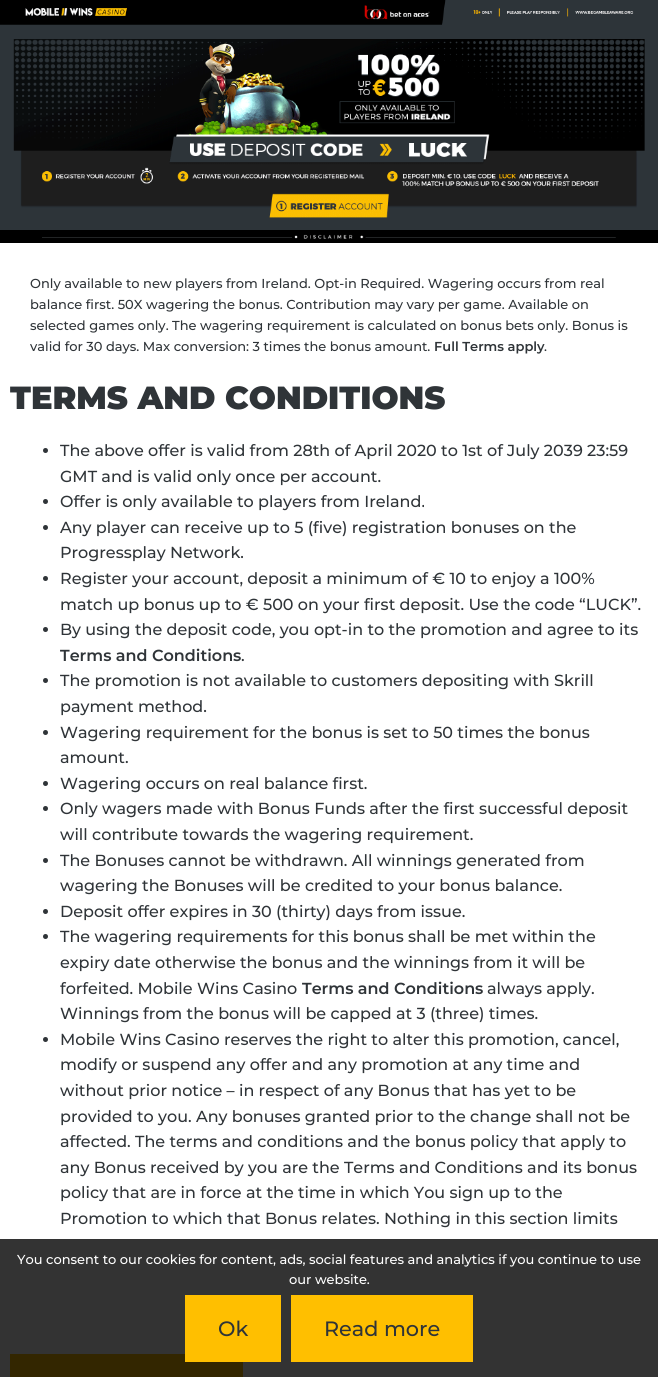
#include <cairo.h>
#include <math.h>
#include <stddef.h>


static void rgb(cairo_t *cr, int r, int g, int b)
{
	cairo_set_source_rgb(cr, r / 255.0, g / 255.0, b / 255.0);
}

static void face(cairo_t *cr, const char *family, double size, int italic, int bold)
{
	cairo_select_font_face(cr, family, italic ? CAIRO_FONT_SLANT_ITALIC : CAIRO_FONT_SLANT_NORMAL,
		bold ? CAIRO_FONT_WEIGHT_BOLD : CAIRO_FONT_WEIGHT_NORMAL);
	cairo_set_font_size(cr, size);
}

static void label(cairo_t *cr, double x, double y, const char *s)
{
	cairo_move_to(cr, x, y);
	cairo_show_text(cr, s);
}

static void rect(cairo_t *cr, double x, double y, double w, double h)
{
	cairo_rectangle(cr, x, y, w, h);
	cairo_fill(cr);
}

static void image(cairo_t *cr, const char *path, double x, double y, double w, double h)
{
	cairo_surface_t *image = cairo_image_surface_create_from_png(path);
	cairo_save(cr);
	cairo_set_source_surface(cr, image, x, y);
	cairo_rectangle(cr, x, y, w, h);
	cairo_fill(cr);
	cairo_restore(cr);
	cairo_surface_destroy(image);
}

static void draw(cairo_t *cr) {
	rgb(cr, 255, 255, 255);
	cairo_paint(cr);
	image(cr, "image0.png", 0, 0, 658, 243);
	face(cr, "Montserrat Medium", 13, 0, 0);
	rgb(cr, 47, 52, 56);
	label(cr, 30, 288, "Only available to new players from Ireland. Opt-in Required. Wagering occurs from real");
	label(cr, 30, 309, "balance first. 50X wagering the bonus. Contribution may vary per game. Available on");
	label(cr, 30, 330, "selected games only. The wagering requirement is calculated on bonus bets only. Bonus is");
	label(cr, 30, 351, "valid for 30 days. Max conversion: 3 times the bonus amount.");
	face(cr, "Montserrat SemiBold", 13, 0, 0);
	label(cr, 434, 351, "Full Terms apply");
	face(cr, "Montserrat Medium", 13, 0, 0);
	label(cr, 544, 351, ".");
	face(cr, "Montserrat Black", 32, 0, 0);
	label(cr, 10, 409, "TERMS AND CONDITIONS");
	cairo_new_path(cr);
	cairo_arc(cr, 45.5, 450.5, 2.5, 0, 2 * M_PI);
	cairo_fill(cr);
	face(cr, "Montserrat Medium", 16, 0, 0);
	label(cr, 60, 456, "The above offer is valid from 28th of April 2020 to 1st of July 2039 23:59");
	label(cr, 60, 482, "GMT and is valid only once per account.");
	cairo_new_path(cr);
	cairo_arc(cr, 45.5, 501.5, 2.5, 0, 2 * M_PI);
	cairo_fill(cr);
	label(cr, 60, 507, "Offer is only available to players from Ireland.");
	cairo_new_path(cr);
	cairo_arc(cr, 45.5, 527.5, 2.5, 0, 2 * M_PI);
	cairo_fill(cr);
	label(cr, 60, 533, "Any player can receive up to 5 (five) registration bonuses on the");
	label(cr, 60, 558, "Progressplay Network.");
	cairo_new_path(cr);
	cairo_arc(cr, 45.5, 578.5, 2.5, 0, 2 * M_PI);
	cairo_fill(cr);
	label(cr, 60, 584, "Register your account, deposit a minimum of € 10 to enjoy a 100%");
	label(cr, 60, 610, "match up bonus up to € 500 on your first deposit. Use the code “LUCK”.");
	cairo_new_path(cr);
	cairo_arc(cr, 45.5, 629.5, 2.5, 0, 2 * M_PI);
	cairo_fill(cr);
	label(cr, 60, 635, "By using the deposit code, you opt-in to the promotion and agree to its");
	face(cr, "Montserrat SemiBold", 16, 0, 0);
	label(cr, 60, 661, "Terms and Conditions");
	face(cr, "Montserrat Medium", 16, 0, 0);
	label(cr, 241, 661, ".");
	cairo_new_path(cr);
	cairo_arc(cr, 45.5, 680.5, 2.5, 0, 2 * M_PI);
	cairo_fill(cr);
	label(cr, 60, 686, "The promotion is not available to customers depositing with Skrill");
	label(cr, 60, 712, "payment method.");
	cairo_new_path(cr);
	cairo_arc(cr, 45.5, 732.5, 2.5, 0, 2 * M_PI);
	cairo_fill(cr);
	label(cr, 60, 738, "Wagering requirement for the bonus is set to 50 times the bonus");
	label(cr, 60, 763, "amount.");
	cairo_new_path(cr);
	cairo_arc(cr, 45.5, 783.5, 2.5, 0, 2 * M_PI);
	cairo_fill(cr);
	label(cr, 60, 789, "Wagering occurs on real balance first.");
	cairo_new_path(cr);
	cairo_arc(cr, 45.5, 808.5, 2.5, 0, 2 * M_PI);
	cairo_fill(cr);
	label(cr, 60, 814, "Only wagers made with Bonus Funds after the first successful deposit");
	label(cr, 60, 840, "will contribute towards the wagering requirement.");
	cairo_new_path(cr);
	cairo_arc(cr, 45.5, 860.5, 2.5, 0, 2 * M_PI);
	cairo_fill(cr);
	label(cr, 60, 866, "The Bonuses cannot be withdrawn. All winnings generated from");
	label(cr, 60, 891, "wagering the Bonuses will be credited to your bonus balance.");
	cairo_new_path(cr);
	cairo_arc(cr, 45.5, 911.5, 2.5, 0, 2 * M_PI);
	cairo_fill(cr);
	label(cr, 60, 917, "Deposit offer expires in 30 (thirty) days from issue.");
	cairo_new_path(cr);
	cairo_arc(cr, 45.5, 936.5, 2.5, 0, 2 * M_PI);
	cairo_fill(cr);
	label(cr, 60, 942, "The wagering requirements for this bonus shall be met within the");
	label(cr, 60, 968, "expiry date otherwise the bonus and the winnings from it will be");
	label(cr, 60, 994, "forfeited. Mobile Wins Casino");
	face(cr, "Montserrat SemiBold", 16, 0, 0);
	label(cr, 302, 994, "Terms and Conditions");
	face(cr, "Montserrat Medium", 16, 0, 0);
	label(cr, 487, 994, "always apply.");
	label(cr, 60, 1019, "Winnings from the bonus will be capped at 3 (three) times.");
	cairo_new_path(cr);
	cairo_arc(cr, 45.5, 1039.5, 2.5, 0, 2 * M_PI);
	cairo_fill(cr);
	label(cr, 60, 1045, "Mobile Wins Casino reserves the right to alter this promotion, cancel,");
	label(cr, 60, 1070, "modify or suspend any offer and any promotion at any time and");
	label(cr, 60, 1096, "without prior notice – in respect of any Bonus that has yet to be");
	label(cr, 60, 1122, "provided to you. Any bonuses granted prior to the change shall not be");
	label(cr, 60, 1147, "affected. The terms and conditions and the bonus policy that apply to");
	label(cr, 60, 1173, "any Bonus received by you are the Terms and Conditions and its bonus");
	label(cr, 60, 1198, "policy that are in force at the time in which You sign up to the");
	label(cr, 60, 1224, "Promotion to which that Bonus relates. Nothing in this section limits");
	rgb(cr, 255, 191, 0);
	rect(cr, 10, 1354, 233, 23);
	cairo_set_source_rgba(cr, 0, 0, 0, 0.8);
	rect(cr, 0, 1239, 658, 138);
	face(cr, "Montserrat Medium", 13, 0, 0);
	rgb(cr, 255, 255, 255);
	label(cr, 17, 1264, "You consent to our cookies for content, ads, social features and analytics if you continue to use");
	label(cr, 289, 1284, "our website.");
	rgb(cr, 255, 191, 0);
	rect(cr, 185, 1295, 96, 67);
	face(cr, "Montserrat Medium", 20.75, 0, 0);
	rgb(cr, 47, 52, 56);
	label(cr, 218, 1336, "Ok");
	rgb(cr, 255, 191, 0);
	rect(cr, 291, 1295, 182, 67);
	rgb(cr, 47, 52, 56);
	label(cr, 324, 1336, "Read more");
}

int main(void) {
	cairo_surface_t *surface = cairo_image_surface_create(CAIRO_FORMAT_RGB24, 658, 1377);
	cairo_t *cr = cairo_create(surface);
	cairo_font_options_t *options = cairo_font_options_create();
	cairo_font_options_set_hint_metrics(options, CAIRO_HINT_METRICS_OFF);
	cairo_font_options_set_hint_style(options, CAIRO_HINT_STYLE_NONE);
	cairo_set_font_options(cr, options);
	cairo_set_miter_limit(cr, 4);
	draw(cr);
	cairo_surface_write_to_png(surface, "render.png");
	cairo_font_options_destroy(options);
	cairo_destroy(cr);
	cairo_surface_destroy(surface);
	return 0;
}
